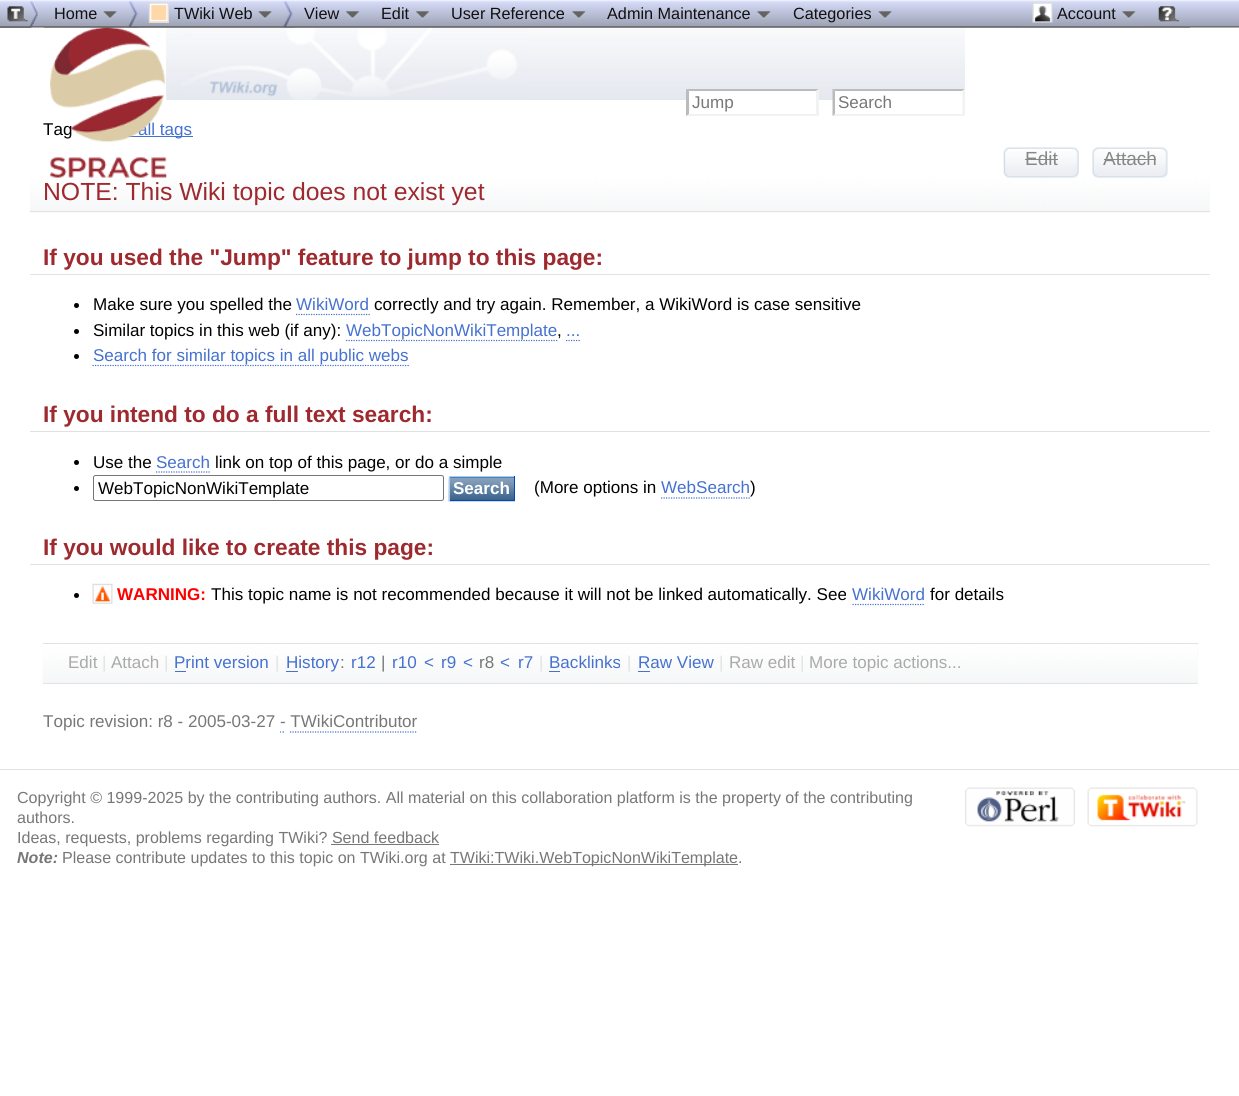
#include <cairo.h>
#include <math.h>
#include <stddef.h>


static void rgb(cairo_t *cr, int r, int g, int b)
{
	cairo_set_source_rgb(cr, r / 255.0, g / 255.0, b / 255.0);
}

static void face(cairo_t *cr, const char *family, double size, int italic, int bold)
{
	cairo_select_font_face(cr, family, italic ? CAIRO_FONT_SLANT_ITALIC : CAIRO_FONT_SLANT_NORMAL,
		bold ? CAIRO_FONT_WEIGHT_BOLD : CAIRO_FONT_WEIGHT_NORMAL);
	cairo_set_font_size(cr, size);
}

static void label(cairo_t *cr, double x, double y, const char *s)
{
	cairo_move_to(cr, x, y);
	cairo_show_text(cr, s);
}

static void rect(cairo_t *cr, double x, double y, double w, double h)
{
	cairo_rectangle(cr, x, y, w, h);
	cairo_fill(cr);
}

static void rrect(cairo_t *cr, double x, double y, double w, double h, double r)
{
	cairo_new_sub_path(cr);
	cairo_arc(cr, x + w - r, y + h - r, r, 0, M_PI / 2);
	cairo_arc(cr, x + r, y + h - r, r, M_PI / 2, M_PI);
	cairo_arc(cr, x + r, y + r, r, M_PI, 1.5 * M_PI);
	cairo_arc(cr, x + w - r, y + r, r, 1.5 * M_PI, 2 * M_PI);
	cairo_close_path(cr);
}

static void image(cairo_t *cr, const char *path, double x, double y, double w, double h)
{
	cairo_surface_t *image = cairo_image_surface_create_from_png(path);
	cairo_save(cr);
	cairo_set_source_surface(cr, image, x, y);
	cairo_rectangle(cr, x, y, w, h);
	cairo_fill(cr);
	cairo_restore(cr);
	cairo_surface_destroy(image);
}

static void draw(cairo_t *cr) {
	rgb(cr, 255, 255, 255);
	cairo_paint(cr);
	image(cr, "image0.png", 0, 27, 32, 1);
	image(cr, "image20.png", 166, 28, 799, 72);
	face(cr, "Liberation Sans", 17.05, 0, 0);
	rgb(cr, 0, 0, 0);
	label(cr, 43, 135, "Tag");
	rgb(cr, 69, 113, 208);
	rect(cr, 127, 136, 66, 1);
	label(cr, 138, 135, "all tags");
	image(cr, "image23.png", 30, 174, 1180, 39);
	image(cr, "image19.png", 50, 27, 117, 151);
	image(cr, "image1.png", 0, 0, 1239, 28);
	image(cr, "image2.png", 0, 1, 39, 27);
	image(cr, "image3.png", 43, 27, 980, 1);
	face(cr, "Liberation Sans", 16.25, 0, 0);
	rgb(cr, 17, 17, 17);
	label(cr, 54, 19, "Home");
	image(cr, "image4.png", 102, 11, 16, 8);
	image(cr, "image5.png", 128, 1, 11, 27);
	rgb(cr, 255, 216, 170);
	rect(cr, 149, 3, 20, 20);
	image(cr, "image6.png", 148, 2, 21, 21);
	rgb(cr, 17, 17, 17);
	label(cr, 174, 19, "TWiki Web");
	image(cr, "image7.png", 257, 11, 16, 8);
	image(cr, "image8.png", 283, 1, 11, 27);
	label(cr, 304, 19, "View");
	image(cr, "image9.png", 345, 11, 15, 8);
	label(cr, 381, 19, "Edit");
	image(cr, "image10.png", 415, 11, 15, 8);
	label(cr, 451, 19, "User Reference");
	image(cr, "image11.png", 571, 11, 15, 8);
	label(cr, 607, 19, "Admin Maintenance");
	image(cr, "image12.png", 756, 11, 15, 8);
	label(cr, 793, 19, "Categories");
	image(cr, "image13.png", 877, 11, 16, 8);
	image(cr, "image14.png", 1022, 26, 126, 2);
	image(cr, "image15.png", 1032, 2, 21, 21);
	label(cr, 1057, 19, "Account");
	image(cr, "image16.png", 1121, 11, 15, 8);
	image(cr, "image17.png", 1147, 27, 43, 1);
	image(cr, "image18.png", 1158, 6, 21, 16);
	rgb(cr, 255, 255, 255);
	rect(cr, 686, 89, 133, 11);
	rgb(cr, 187, 187, 187);
	cairo_new_path(cr);
	cairo_move_to(cr, 686, 89);
	cairo_line_to(cr, 819, 89);
	cairo_line_to(cr, 816, 91);
	cairo_line_to(cr, 689, 91);
	cairo_close_path(cr);
	cairo_fill(cr);
	rgb(cr, 242, 242, 242);
	cairo_new_path(cr);
	cairo_move_to(cr, 819, 89);
	cairo_line_to(cr, 819, 116);
	cairo_line_to(cr, 816, 114);
	cairo_line_to(cr, 816, 91);
	cairo_close_path(cr);
	cairo_fill(cr);
	cairo_new_path(cr);
	cairo_move_to(cr, 819, 116);
	cairo_line_to(cr, 686, 116);
	cairo_line_to(cr, 689, 114);
	cairo_line_to(cr, 816, 114);
	cairo_close_path(cr);
	cairo_fill(cr);
	rgb(cr, 187, 187, 187);
	cairo_new_path(cr);
	cairo_move_to(cr, 686, 116);
	cairo_line_to(cr, 686, 89);
	cairo_line_to(cr, 689, 91);
	cairo_line_to(cr, 689, 114);
	cairo_close_path(cr);
	cairo_fill(cr);
	face(cr, "Liberation Sans", 17.05, 0, 0);
	rgb(cr, 119, 119, 119);
	label(cr, 692, 108, "Jump");
	rgb(cr, 255, 255, 255);
	rect(cr, 833, 89, 132, 11);
	rgb(cr, 187, 187, 187);
	cairo_new_path(cr);
	cairo_move_to(cr, 832, 89);
	cairo_line_to(cr, 965, 89);
	cairo_line_to(cr, 962, 91);
	cairo_line_to(cr, 835, 91);
	cairo_close_path(cr);
	cairo_fill(cr);
	rgb(cr, 242, 242, 242);
	cairo_new_path(cr);
	cairo_move_to(cr, 965, 89);
	cairo_line_to(cr, 965, 116);
	cairo_line_to(cr, 962.5, 114);
	cairo_line_to(cr, 962.5, 91);
	cairo_close_path(cr);
	cairo_fill(cr);
	cairo_new_path(cr);
	cairo_move_to(cr, 965, 116);
	cairo_line_to(cr, 832, 116);
	cairo_line_to(cr, 835, 114);
	cairo_line_to(cr, 962, 114);
	cairo_close_path(cr);
	cairo_fill(cr);
	rgb(cr, 187, 187, 187);
	cairo_new_path(cr);
	cairo_move_to(cr, 832.5, 116);
	cairo_line_to(cr, 832.5, 89);
	cairo_line_to(cr, 835, 91);
	cairo_line_to(cr, 835, 114);
	cairo_close_path(cr);
	cairo_fill(cr);
	rgb(cr, 119, 119, 119);
	label(cr, 838, 108, "Search");
	image(cr, "image21.png", 1003, 147, 76, 31);
	face(cr, "Liberation Sans", 19, 0, 0);
	rgb(cr, 136, 136, 136);
	label(cr, 1025, 165, "Edit");
	rect(cr, 1025, 159, 33, 1);
	image(cr, "image22.png", 1092, 147, 76, 31);
	label(cr, 1103, 165, "Attach");
	rect(cr, 1104, 159, 52, 1);
	rgb(cr, 226, 226, 226);
	rect(cr, 30, 211, 1180, 1);
	face(cr, "Liberation Sans", 24.75, 0, 0);
	rgb(cr, 158, 42, 47);
	label(cr, 43, 200, "NOTE: This Wiki topic does not exist yet");
	rgb(cr, 226, 226, 226);
	rect(cr, 30, 274, 1180, 1);
	face(cr, "Liberation Sans", 22.7, 0, 1);
	rgb(cr, 158, 42, 47);
	label(cr, 43, 265, "If you used the \"Jump\" feature to jump to this page:");
	rgb(cr, 0, 0, 0);
	cairo_new_path(cr);
	cairo_arc(cr, 76.5, 305.5, 2.5, 0, 2 * M_PI);
	cairo_fill(cr);
	face(cr, "Liberation Sans", 17.05, 0, 0);
	label(cr, 93, 310, "Make sure you spelled the");
	rgb(cr, 69, 113, 208);
	label(cr, 296, 310, "WikiWord");
	cairo_new_path(cr);
	cairo_move_to(cr, 296, 314.5);
	cairo_line_to(cr, 370, 314.5);
	cairo_set_line_width(cr, 1.2);
	cairo_set_dash(cr, (double[]){1.25, 1.25}, 2, 0);
	cairo_stroke(cr);
	rgb(cr, 0, 0, 0);
	label(cr, 374, 310, "correctly and try again. Remember, a WikiWord is case sensitive");
	cairo_new_path(cr);
	cairo_arc(cr, 76.5, 331.5, 2.5, 0, 2 * M_PI);
	cairo_fill(cr);
	label(cr, 93, 336, "Similar topics in this web (if any):");
	cairo_new_path(cr);
	cairo_move_to(cr, 346, 340.5);
	cairo_line_to(cr, 557.5, 340.5);
	rgb(cr, 69, 113, 208);
	cairo_stroke(cr);
	label(cr, 346, 336, "WebTopicNonWikiTemplate");
	rgb(cr, 0, 0, 0);
	label(cr, 557, 336, ",");
	rgb(cr, 69, 113, 208);
	label(cr, 566, 336, "...");
	cairo_new_path(cr);
	cairo_move_to(cr, 566, 340.5);
	cairo_line_to(cr, 581, 340.5);
	cairo_stroke(cr);
	rgb(cr, 0, 0, 0);
	cairo_arc(cr, 76.5, 356.5, 2.5, 0, 2 * M_PI);
	cairo_fill(cr);
	cairo_new_path(cr);
	cairo_move_to(cr, 92.5, 365.5);
	cairo_line_to(cr, 409, 365.5);
	rgb(cr, 69, 113, 208);
	cairo_stroke(cr);
	label(cr, 93, 361, "Search for similar topics in all public webs");
	rgb(cr, 226, 226, 226);
	rect(cr, 30, 431, 1180, 1);
	face(cr, "Liberation Sans", 22.7, 0, 1);
	rgb(cr, 158, 42, 47);
	label(cr, 43, 422, "If you intend to do a full text search:");
	rgb(cr, 0, 0, 0);
	cairo_new_path(cr);
	cairo_arc(cr, 76.5, 462.5, 2.5, 0, 2 * M_PI);
	cairo_fill(cr);
	face(cr, "Liberation Sans", 17.05, 0, 0);
	label(cr, 93, 468, "Use the");
	rgb(cr, 69, 113, 208);
	label(cr, 156, 468, "Search");
	cairo_new_path(cr);
	cairo_move_to(cr, 156, 472);
	cairo_line_to(cr, 210, 472);
	cairo_stroke(cr);
	rgb(cr, 0, 0, 0);
	label(cr, 215, 468, "link on top of this page, or do a simple");
	cairo_new_path(cr);
	cairo_arc(cr, 76.5, 488.5, 2.5, 0, 2 * M_PI);
	cairo_fill(cr);
	rrect(cr, 93.5, 475.5, 350, 25, 2);
	rgb(cr, 118, 118, 118);
	cairo_set_line_width(cr, 1);
	cairo_set_dash(cr, NULL, 0, 0);
	cairo_stroke(cr);
	rgb(cr, 0, 0, 0);
	label(cr, 98, 494, "WebTopicNonWikiTemplate");
	rgb(cr, 0, 102, 204);
	rect(cr, 450, 477, 64, 1);
	image(cr, "image24.png", 448, 477, 67, 25);
	rgb(cr, 171, 205, 240);
	rect(cr, 449, 476, 66, 1);
	rgb(cr, 0, 72, 184);
	rect(cr, 514, 476, 1, 25);
	rect(cr, 449, 500, 66, 1);
	rgb(cr, 171, 205, 240);
	rect(cr, 449, 476, 1, 25);
	face(cr, "Liberation Sans", 17.05, 0, 1);
	rgb(cr, 255, 255, 255);
	label(cr, 453, 494, "Search");
	face(cr, "Liberation Sans", 17.05, 0, 0);
	rgb(cr, 0, 0, 0);
	label(cr, 534, 493, "(More options in");
	rgb(cr, 69, 113, 208);
	label(cr, 661, 493, "WebSearch");
	cairo_new_path(cr);
	cairo_move_to(cr, 661, 498);
	cairo_line_to(cr, 750, 498);
	cairo_set_line_width(cr, 1.2);
	cairo_set_dash(cr, (double[]){1.25, 1.25}, 2, 0);
	cairo_stroke(cr);
	rgb(cr, 0, 0, 0);
	label(cr, 750, 493, ")");
	rgb(cr, 226, 226, 226);
	rect(cr, 30, 564, 1180, 1);
	face(cr, "Liberation Sans", 22.7, 0, 1);
	rgb(cr, 158, 42, 47);
	label(cr, 43, 555, "If you would like to create this page:");
	rgb(cr, 0, 0, 0);
	cairo_new_path(cr);
	cairo_arc(cr, 76.5, 595.5, 2.5, 0, 2 * M_PI);
	cairo_fill(cr);
	image(cr, "image25.png", 92, 583, 21, 21);
	face(cr, "Liberation Sans", 17.05, 0, 1);
	rgb(cr, 255, 0, 0);
	label(cr, 117, 600, "WARNING:");
	face(cr, "Liberation Sans", 17.05, 0, 0);
	rgb(cr, 0, 0, 0);
	label(cr, 211, 600, "This topic name is not recommended because it will not be linked automatically. See");
	rgb(cr, 69, 113, 208);
	label(cr, 852, 600, "WikiWord");
	cairo_new_path(cr);
	cairo_move_to(cr, 852.5, 604.5);
	cairo_line_to(cr, 925, 604.5);
	cairo_stroke(cr);
	rgb(cr, 0, 0, 0);
	label(cr, 930, 600, "for details");
	rgb(cr, 246, 246, 246);
	rect(cr, 43, 644, 1155, 39);
	rgb(cr, 226, 226, 226);
	rect(cr, 43, 683, 1155, 1);
	image(cr, "image26.png", 42, 644, 1156, 38);
	rect(cr, 43, 643, 1155, 1);
	rgb(cr, 170, 170, 170);
	label(cr, 68, 668, "Edit");
	rgb(cr, 226, 226, 226);
	label(cr, 102, 668, "|");
	rgb(cr, 170, 170, 170);
	label(cr, 111, 668, "Attach");
	rgb(cr, 226, 226, 226);
	label(cr, 164, 668, "|");
	rgb(cr, 69, 113, 208);
	label(cr, 174, 668, "Print version");
	rect(cr, 175, 671, 11, 1);
	rgb(cr, 226, 226, 226);
	label(cr, 275, 668, "|");
	rgb(cr, 69, 113, 208);
	rect(cr, 286, 671, 12, 1);
	label(cr, 286, 668, "History");
	rgb(cr, 119, 119, 119);
	label(cr, 340, 668, ":");
	rgb(cr, 69, 113, 208);
	label(cr, 351, 668, "r12");
	rgb(cr, 119, 119, 119);
	label(cr, 381, 668, "|");
	rgb(cr, 69, 113, 208);
	label(cr, 392, 668, "r10");
	label(cr, 424, 668, "<");
	label(cr, 441, 668, "r9");
	label(cr, 463, 668, "<");
	rgb(cr, 119, 119, 119);
	label(cr, 479, 668, "r8");
	rgb(cr, 69, 113, 208);
	label(cr, 500, 668, "<");
	label(cr, 518, 668, "r7");
	rgb(cr, 226, 226, 226);
	label(cr, 539, 668, "|");
	rgb(cr, 69, 113, 208);
	label(cr, 549, 668, "Backlinks");
	rect(cr, 549, 671, 11, 1);
	rgb(cr, 226, 226, 226);
	label(cr, 627, 668, "|");
	rgb(cr, 69, 113, 208);
	label(cr, 638, 668, "Raw View");
	rect(cr, 638, 671, 12, 1);
	rgb(cr, 226, 226, 226);
	label(cr, 719, 668, "|");
	rgb(cr, 170, 170, 170);
	label(cr, 729, 668, "Raw edit");
	rgb(cr, 226, 226, 226);
	label(cr, 800, 668, "|");
	rgb(cr, 170, 170, 170);
	label(cr, 809, 668, "More topic actions...");
	rgb(cr, 119, 119, 119);
	label(cr, 43, 727, "Topic revision: r8 - 2005-03-27 - TWikiContributor");
	cairo_new_path(cr);
	cairo_move_to(cr, 280, 732);
	cairo_line_to(cr, 281, 732);
	cairo_move_to(cr, 282.5, 732);
	cairo_line_to(cr, 284, 732);
	rgb(cr, 69, 113, 208);
	cairo_set_dash(cr, NULL, 0, 0);
	cairo_stroke(cr);
	cairo_new_path(cr);
	cairo_move_to(cr, 290, 732);
	cairo_line_to(cr, 417.5, 732);
	cairo_set_dash(cr, (double[]){1.25, 1.25}, 2, 0);
	cairo_stroke(cr);
	rgb(cr, 226, 226, 226);
	rect(cr, 0, 769, 1239, 1);
	face(cr, "Liberation Sans", 16.05, 0, 0);
	rgb(cr, 119, 119, 119);
	label(cr, 17, 803, "Copyright © 1999-2025 by the contributing authors. All material on this collaboration platform is the property of the contributing");
	image(cr, "image27.png", 965, 787, 110, 40);
	image(cr, "image28.png", 1087, 787, 111, 40);
	label(cr, 17, 823, "authors.");
	label(cr, 17, 843, "Ideas, requests, problems regarding TWiki? Send feedback");
	rect(cr, 331, 844, 108, 1);
	face(cr, "Liberation Sans", 16.05, 1, 1);
	label(cr, 17, 863, "Note:");
	face(cr, "Liberation Sans", 16.05, 0, 0);
	label(cr, 62, 863, "Please contribute updates to this topic on TWiki.org at");
	rect(cr, 450, 864, 288, 1);
	label(cr, 450, 863, "TWiki:TWiki.WebTopicNonWikiTemplate.");
}

int main(void) {
	cairo_surface_t *surface = cairo_image_surface_create(CAIRO_FORMAT_RGB24, 1239, 1096);
	cairo_t *cr = cairo_create(surface);
	cairo_font_options_t *options = cairo_font_options_create();
	cairo_font_options_set_hint_metrics(options, CAIRO_HINT_METRICS_OFF);
	cairo_font_options_set_hint_style(options, CAIRO_HINT_STYLE_NONE);
	cairo_set_font_options(cr, options);
	cairo_set_miter_limit(cr, 4);
	draw(cr);
	cairo_surface_write_to_png(surface, "render.png");
	cairo_font_options_destroy(options);
	cairo_destroy(cr);
	cairo_surface_destroy(surface);
	return 0;
}
